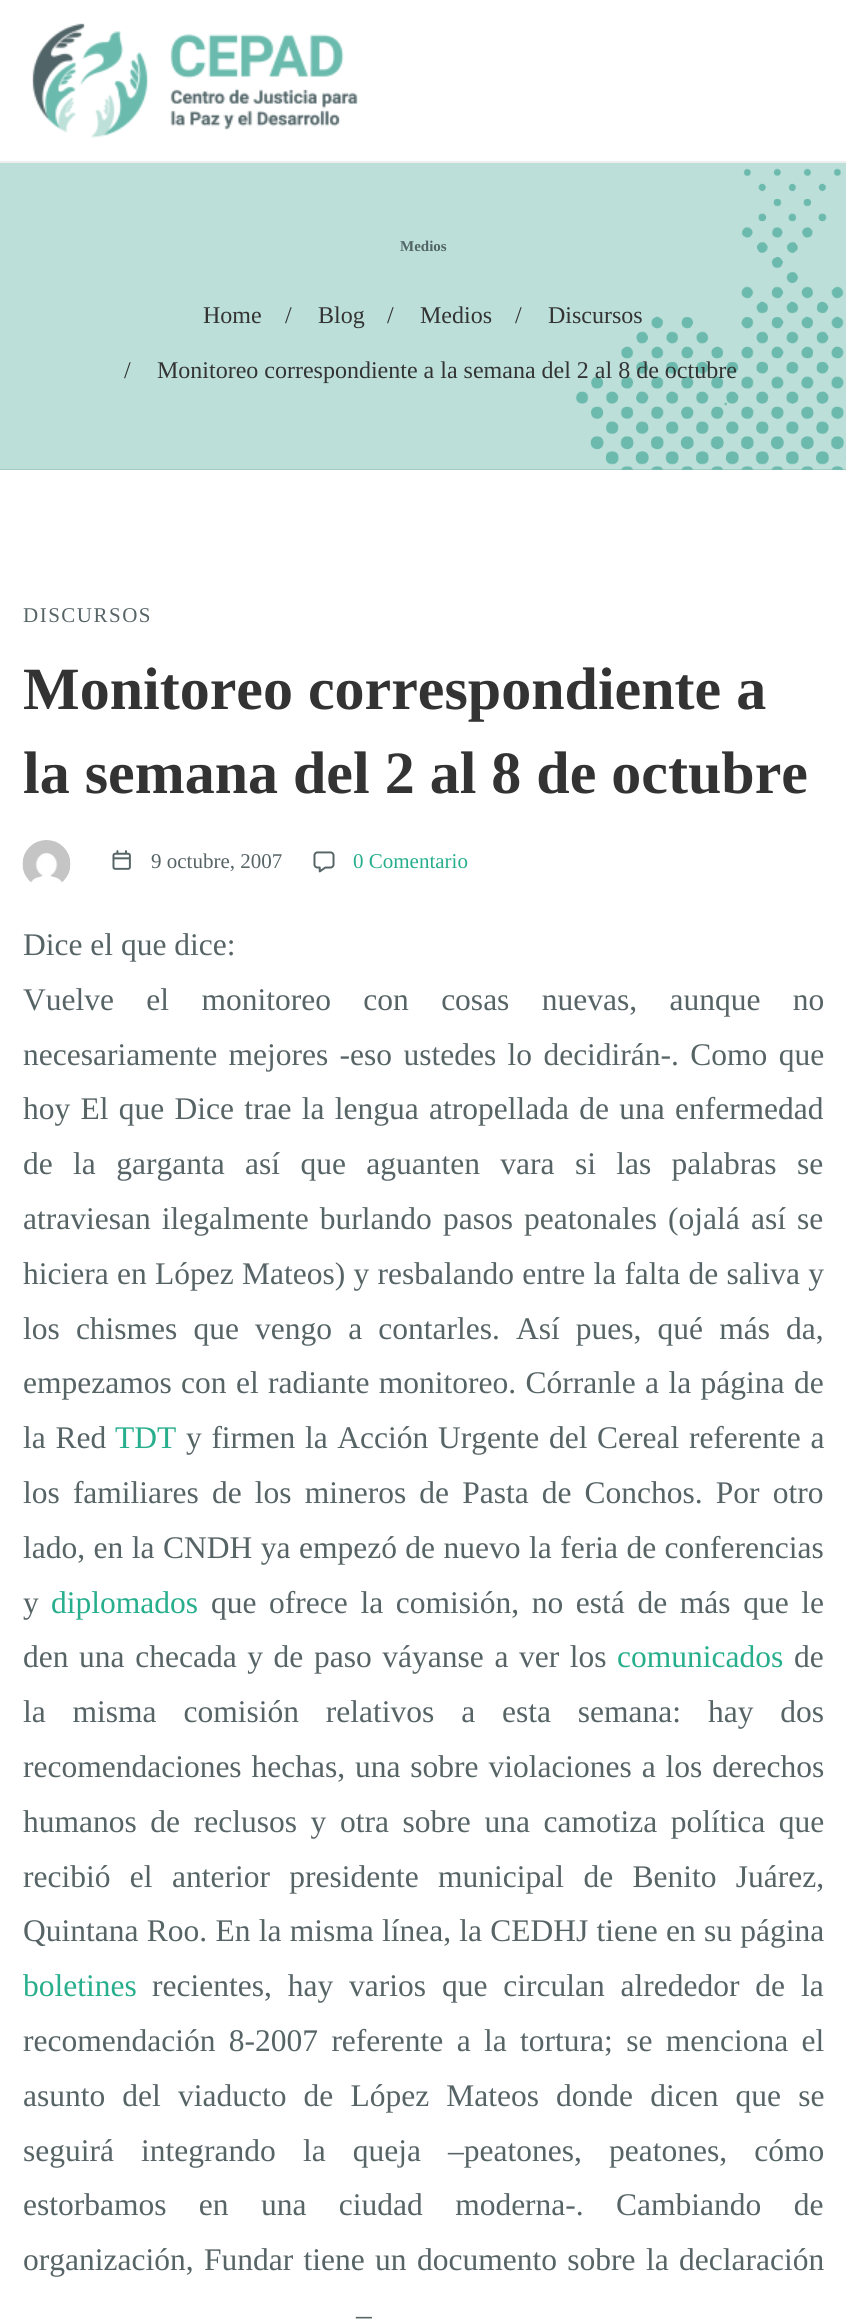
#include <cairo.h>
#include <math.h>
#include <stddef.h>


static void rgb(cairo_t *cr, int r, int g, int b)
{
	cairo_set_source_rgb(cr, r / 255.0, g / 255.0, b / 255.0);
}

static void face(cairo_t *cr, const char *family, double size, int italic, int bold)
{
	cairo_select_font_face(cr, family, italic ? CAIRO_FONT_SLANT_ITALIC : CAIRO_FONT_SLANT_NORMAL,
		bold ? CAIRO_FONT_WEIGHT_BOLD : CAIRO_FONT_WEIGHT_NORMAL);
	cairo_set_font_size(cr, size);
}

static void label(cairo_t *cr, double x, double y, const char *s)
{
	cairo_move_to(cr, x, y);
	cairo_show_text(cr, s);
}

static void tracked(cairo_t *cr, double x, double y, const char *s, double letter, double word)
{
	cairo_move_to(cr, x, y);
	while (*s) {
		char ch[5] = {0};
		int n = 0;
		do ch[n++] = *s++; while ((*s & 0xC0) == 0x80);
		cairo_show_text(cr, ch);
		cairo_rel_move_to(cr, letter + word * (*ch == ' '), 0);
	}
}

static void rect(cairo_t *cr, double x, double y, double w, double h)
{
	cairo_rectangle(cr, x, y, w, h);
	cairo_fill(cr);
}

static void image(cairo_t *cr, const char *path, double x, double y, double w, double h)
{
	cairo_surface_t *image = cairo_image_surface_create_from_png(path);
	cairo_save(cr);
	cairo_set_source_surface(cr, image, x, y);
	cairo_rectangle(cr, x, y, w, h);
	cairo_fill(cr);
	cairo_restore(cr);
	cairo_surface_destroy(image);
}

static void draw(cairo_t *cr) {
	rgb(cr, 255, 255, 255);
	cairo_paint(cr);
	rgb(cr, 238, 238, 238);
	rect(cr, 0, 161, 846, 2);
	image(cr, "image0.png", 32, 23, 326, 115);
	rgb(cr, 135, 186, 173);
	rect(cr, 0, 469, 846, 1);
	image(cr, "image1.png", 0, 163, 846, 307);
	face(cr, "Liberation Serif", 15, 0, 1);
	rgb(cr, 81, 101, 103);
	label(cr, 400, 251, "Medios");
	face(cr, "Liberation Serif", 24, 0, 0);
	rgb(cr, 51, 51, 51);
	label(cr, 203, 323, "Home");
	label(cr, 285, 323, "/");
	label(cr, 318, 323, "Blog");
	label(cr, 387, 323, "/");
	label(cr, 420, 323, "Medios");
	label(cr, 515, 323, "/");
	label(cr, 548, 323, "Discursos");
	label(cr, 124, 378, "/");
	label(cr, 157, 378, "Monitoreo correspondiente a la semana del 2 al 8 de octubre");
	face(cr, "Liberation Serif", 21, 0, 0);
	rgb(cr, 87, 100, 102);
	tracked(cr, 23, 622, "DISCURSOS", 1.5, 0);
	face(cr, "Liberation Serif", 60, 0, 1);
	rgb(cr, 51, 51, 51);
	label(cr, 23, 709, "Monitoreo correspondiente a");
	label(cr, 23, 793, "la semana del 2 al 8 de octubre");
	image(cr, "image2.png", 22, 840, 49, 43);
	image(cr, "image3.png", 112, 850, 19, 20);
	face(cr, "Liberation Serif", 21, 0, 0);
	rgb(cr, 87, 100, 102);
	label(cr, 151, 868, "9 octubre, 2007");
	image(cr, "image4.png", 313, 851, 22, 22);
	rgb(cr, 39, 174, 140);
	label(cr, 353, 868, "0 Comentario");
	face(cr, "Liberation Serif", 31.5, 0, 0);
	rgb(cr, 87, 100, 102);
	label(cr, 23, 955, "Dice el que dice:");
	tracked(cr, 23, 1010, "Vuelve el monitoreo con cosas nuevas, aunque no", 0, 24.5);
	tracked(cr, 23, 1065, "necesariamente mejores -eso ustedes lo decidirán-. Como que", 0, 3.5);
	tracked(cr, 23, 1119, "hoy El que Dice trae la lengua atropellada de una enfermedad", 0, 2.4);
	tracked(cr, 23, 1174, "de la garganta así que aguanten vara si las palabras se", 0, 12.5);
	tracked(cr, 23, 1229, "atraviesan ilegalmente burlando pasos peatonales (ojalá así se", 0, 3.25);
	tracked(cr, 23, 1284, "hiciera en López Mateos) y resbalando entre la falta de saliva y", 0, 0.4);
	tracked(cr, 23, 1339, "los chismes que vengo a contarles. Así pues, qué más da,", 0, 8.25);
	tracked(cr, 23, 1393, "empezamos con el radiante monitoreo. Córranle a la página de", 0, 1.5);
	tracked(cr, 23, 1448, "la Red", 0, 2);
	rgb(cr, 39, 174, 140);
	label(cr, 115, 1448, "TDT");
	rgb(cr, 87, 100, 102);
	tracked(cr, 186, 1448, "y firmen la Acción Urgente del Cereal referente a", 0, 1.75);
	tracked(cr, 23, 1503, "los familiares de los mineros de Pasta de Conchos. Por otro", 0, 5.25);
	tracked(cr, 23, 1558, "lado, en la CNDH ya empezó de nuevo la feria de conferencias", 0, 0.6);
	label(cr, 23, 1613, "y");
	rgb(cr, 39, 174, 140);
	label(cr, 51, 1613, "diplomados");
	rgb(cr, 87, 100, 102);
	tracked(cr, 211, 1613, "que ofrece la comisión, no está de más que le", 0, 4.75);
	tracked(cr, 23, 1667, "den una checada y de paso váyanse a ver los", 0, 2.75);
	rgb(cr, 39, 174, 140);
	label(cr, 617, 1667, "comunicados");
	rgb(cr, 87, 100, 102);
	label(cr, 794, 1667, "de");
	tracked(cr, 23, 1722, "la misma comisión relativos a esta semana: hay dos", 0, 19);
	tracked(cr, 23, 1777, "recomendaciones hechas, una sobre violaciones a los derechos", 0, 2);
	tracked(cr, 23, 1832, "humanos de reclusos y otra sobre una camotiza política que", 0, 5.75);
	tracked(cr, 23, 1887, "recibió el anterior presidente municipal de Benito Juárez,", 0, 11.5);
	tracked(cr, 23, 1941, "Quintana Roo. En la misma línea, la CEDHJ tiene en su página", 0, 0.4);
	rgb(cr, 39, 174, 140);
	label(cr, 23, 1996, "boletines");
	rgb(cr, 87, 100, 102);
	tracked(cr, 152, 1996, "recientes, hay varios que circulan alrededor de la", 0, 8);
	tracked(cr, 23, 2051, "recomendación 8-2007 referente a la tortura; se menciona el", 0, 5.5);
	tracked(cr, 23, 2106, "asunto del viaducto de López Mateos donde dicen que se", 0, 9.25);
	tracked(cr, 23, 2161, "seguirá integrando la queja –peatones, peatones, cómo", 0, 19.25);
	tracked(cr, 23, 2215, "estorbamos en una ciudad moderna-. Cambiando de", 0, 24.5);
	tracked(cr, 23, 2270, "organización, Fundar tiene un documento sobre la declaración", 0, 2.5);
	label(cr, 356, 2325, "–");
}

int main(void) {
	cairo_surface_t *surface = cairo_image_surface_create(CAIRO_FORMAT_RGB24, 846, 2319);
	cairo_t *cr = cairo_create(surface);
	cairo_font_options_t *options = cairo_font_options_create();
	cairo_font_options_set_hint_metrics(options, CAIRO_HINT_METRICS_OFF);
	cairo_font_options_set_hint_style(options, CAIRO_HINT_STYLE_NONE);
	cairo_set_font_options(cr, options);
	cairo_set_miter_limit(cr, 4);
	draw(cr);
	cairo_surface_write_to_png(surface, "render.png");
	cairo_font_options_destroy(options);
	cairo_destroy(cr);
	cairo_surface_destroy(surface);
	return 0;
}
